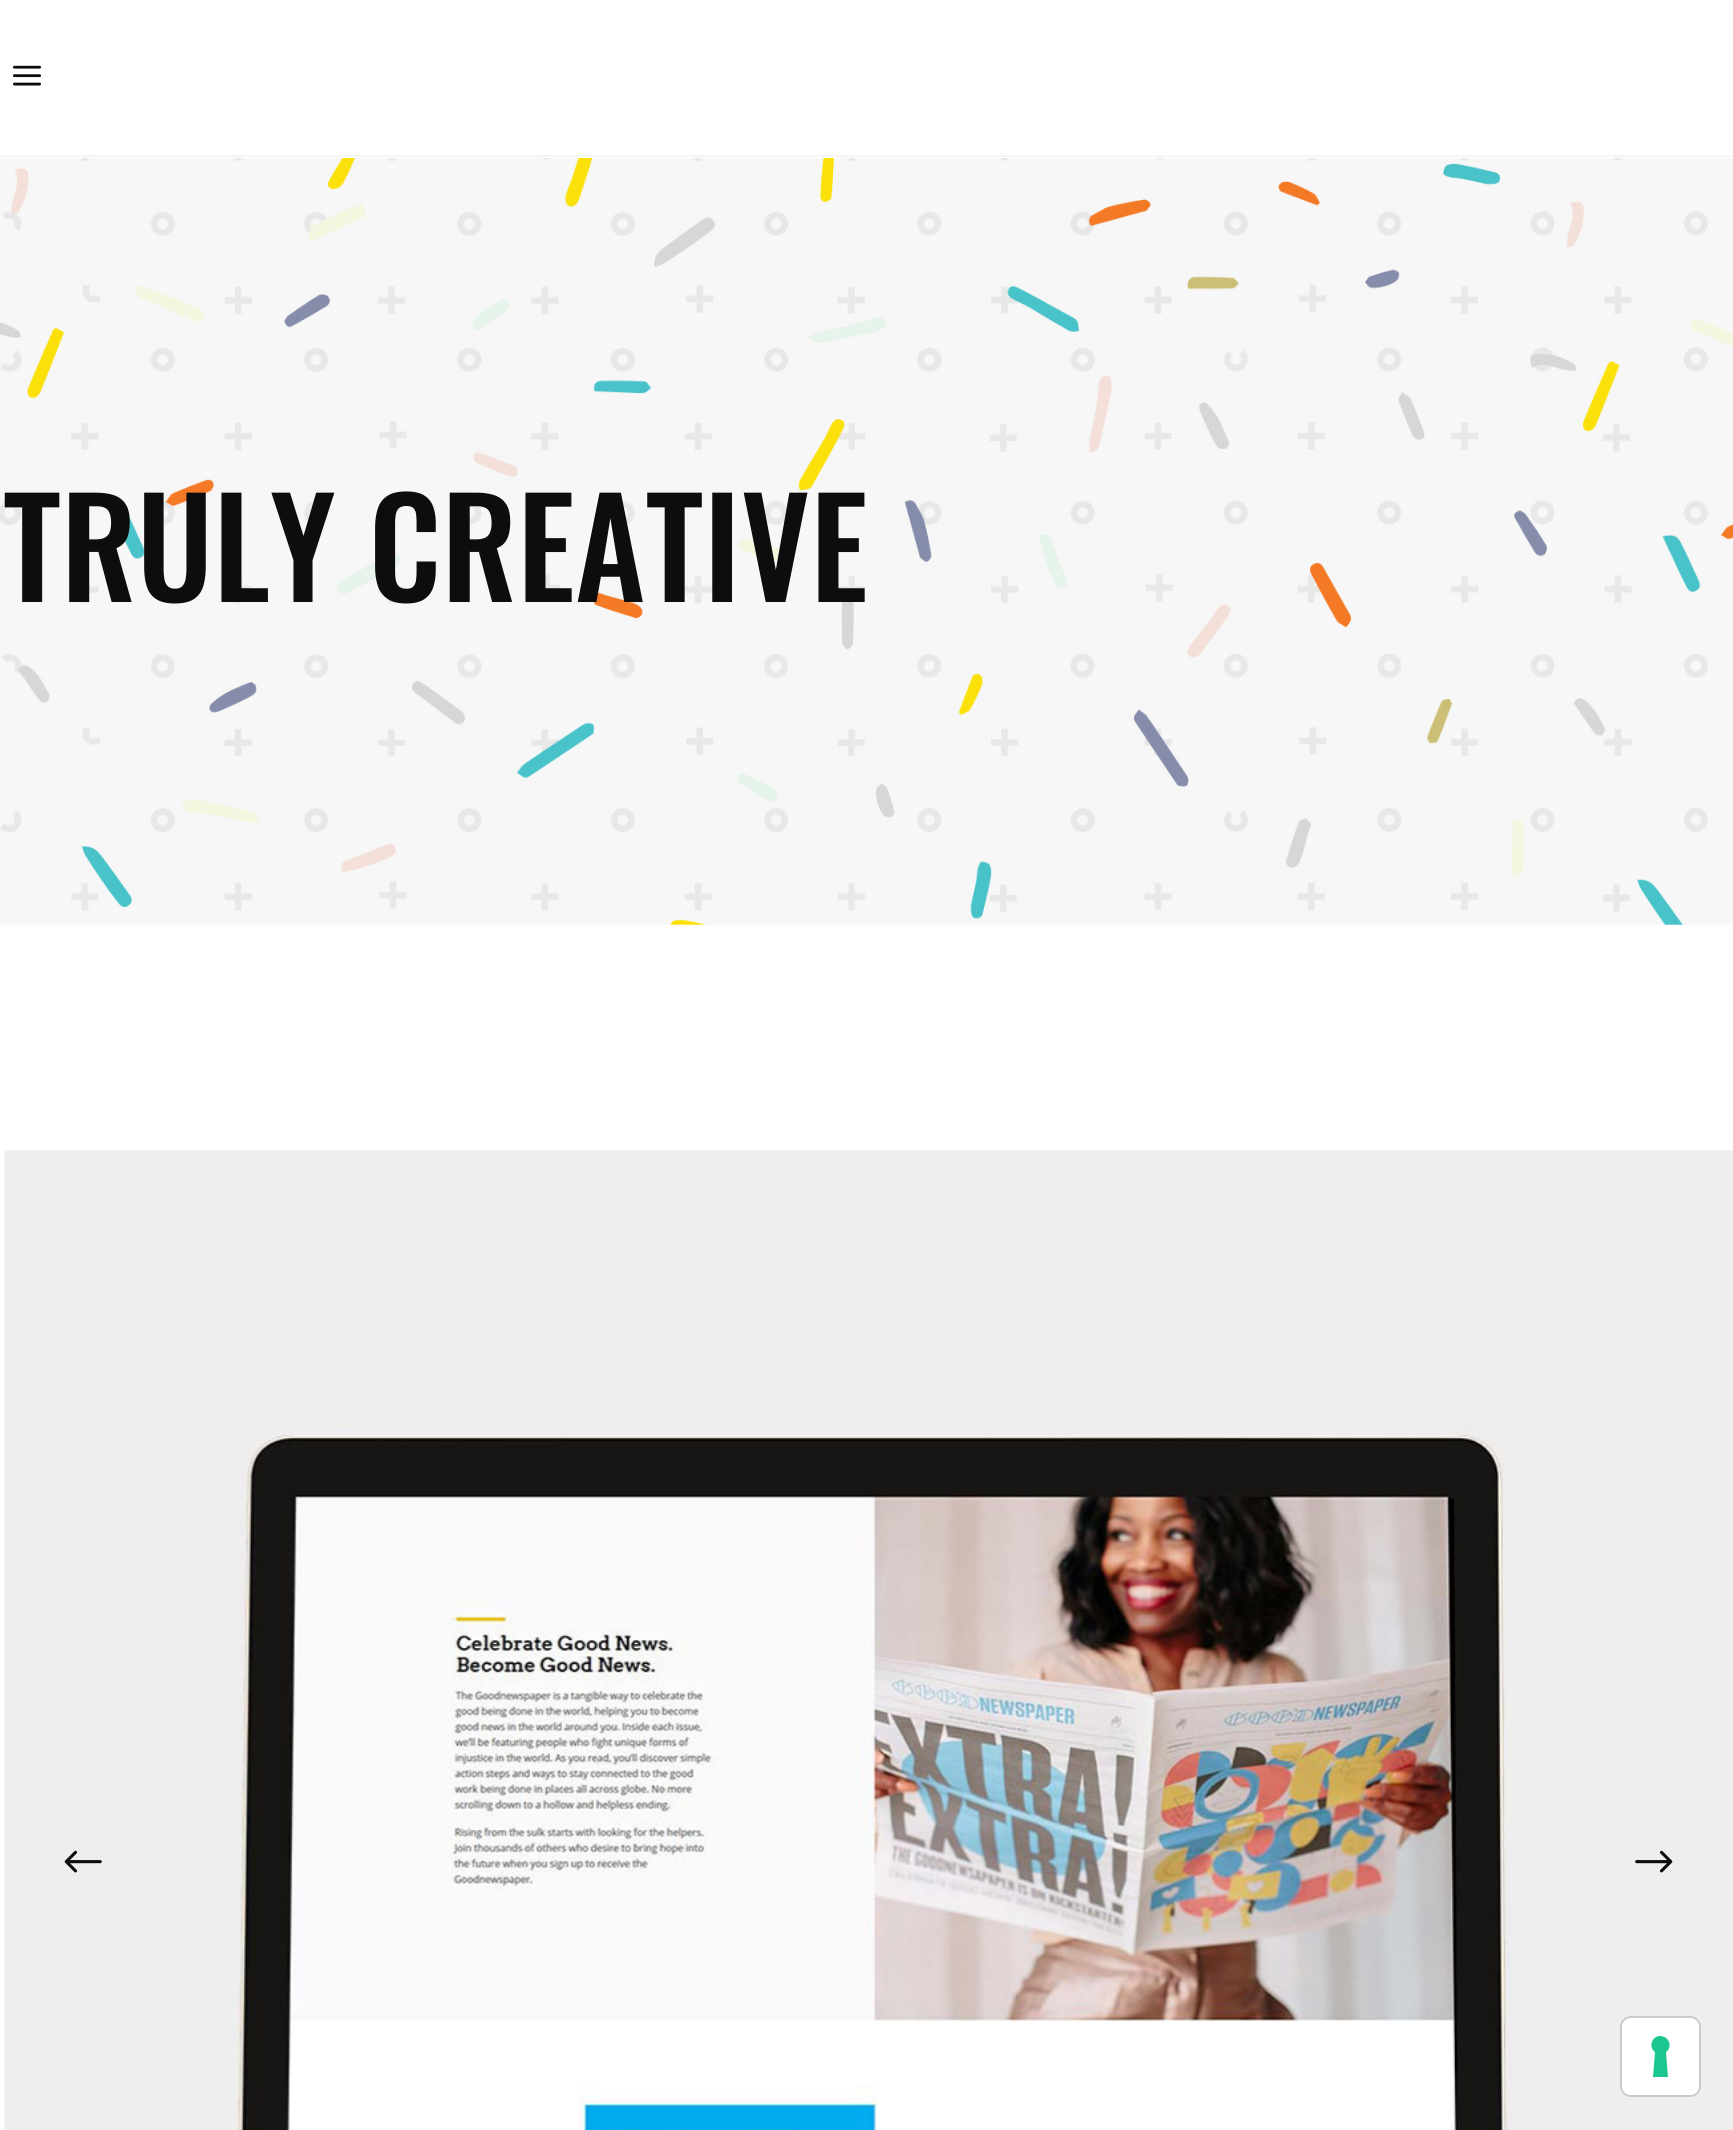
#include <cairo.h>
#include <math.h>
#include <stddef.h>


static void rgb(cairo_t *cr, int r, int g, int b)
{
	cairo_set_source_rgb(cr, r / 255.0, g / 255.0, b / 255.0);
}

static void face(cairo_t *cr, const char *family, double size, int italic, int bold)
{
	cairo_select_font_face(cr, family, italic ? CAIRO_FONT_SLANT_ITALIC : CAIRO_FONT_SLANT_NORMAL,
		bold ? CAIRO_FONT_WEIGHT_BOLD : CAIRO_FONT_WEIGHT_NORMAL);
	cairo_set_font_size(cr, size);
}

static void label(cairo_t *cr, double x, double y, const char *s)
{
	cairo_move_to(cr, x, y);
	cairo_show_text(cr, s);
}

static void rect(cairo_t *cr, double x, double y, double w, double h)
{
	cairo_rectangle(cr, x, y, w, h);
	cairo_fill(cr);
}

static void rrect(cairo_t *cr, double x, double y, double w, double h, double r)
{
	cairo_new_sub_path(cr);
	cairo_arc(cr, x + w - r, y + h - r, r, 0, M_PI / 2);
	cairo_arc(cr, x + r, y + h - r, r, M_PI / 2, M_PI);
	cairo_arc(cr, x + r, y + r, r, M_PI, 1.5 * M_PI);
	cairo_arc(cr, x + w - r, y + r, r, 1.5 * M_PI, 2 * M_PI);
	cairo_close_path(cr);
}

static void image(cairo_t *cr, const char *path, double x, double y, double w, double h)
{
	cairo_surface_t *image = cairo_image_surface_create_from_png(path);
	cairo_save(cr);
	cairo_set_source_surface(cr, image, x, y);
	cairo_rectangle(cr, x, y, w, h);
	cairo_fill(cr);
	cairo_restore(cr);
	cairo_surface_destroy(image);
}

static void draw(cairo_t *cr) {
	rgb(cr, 255, 255, 255);
	cairo_paint(cr);
	rgb(cr, 245, 245, 245);
	rect(cr, 0, 155, 1733, 2);
	image(cr, "image0.png", 13, 65, 28, 21);
	image(cr, "image1.png", 0, 158, 1733, 767);
	face(cr, "Oswald Medium", 135, 0, 0);
	rgb(cr, 13, 13, 13);
	label(cr, 3, 602, "TRULY CREATIVE");
	image(cr, "image2.png", 4, 1150, 1729, 980);
	image(cr, "image3.png", 64, 1850, 38, 23);
	image(cr, "image4.png", 1635, 1850, 38, 23);
	rrect(cr, 1621, 2017, 79, 79, 10);
	rgb(cr, 202, 202, 202);
	cairo_stroke(cr);
	rgb(cr, 255, 255, 255);
	rrect(cr, 1622, 2018, 77, 77, 9);
	cairo_fill(cr);
	rgb(cr, 28, 198, 145);
	cairo_set_fill_rule(cr, CAIRO_FILL_RULE_EVEN_ODD);
	cairo_new_path(cr);
	cairo_move_to(cr, 1660, 2036);
	cairo_curve_to(cr, 1669, 2036, 1673, 2047, 1666, 2052);
	cairo_line_to(cr, 1668, 2077);
	cairo_line_to(cr, 1653, 2077);
	cairo_line_to(cr, 1655, 2052);
	cairo_curve_to(cr, 1648, 2047, 1652, 2036, 1660, 2036);
	cairo_close_path(cr);
	cairo_fill(cr);
}

int main(void) {
	cairo_surface_t *surface = cairo_image_surface_create(CAIRO_FORMAT_RGB24, 1733, 2130);
	cairo_t *cr = cairo_create(surface);
	cairo_font_options_t *options = cairo_font_options_create();
	cairo_font_options_set_hint_metrics(options, CAIRO_HINT_METRICS_OFF);
	cairo_font_options_set_hint_style(options, CAIRO_HINT_STYLE_NONE);
	cairo_set_font_options(cr, options);
	cairo_set_miter_limit(cr, 4);
	draw(cr);
	cairo_surface_write_to_png(surface, "render.png");
	cairo_font_options_destroy(options);
	cairo_destroy(cr);
	cairo_surface_destroy(surface);
	return 0;
}
